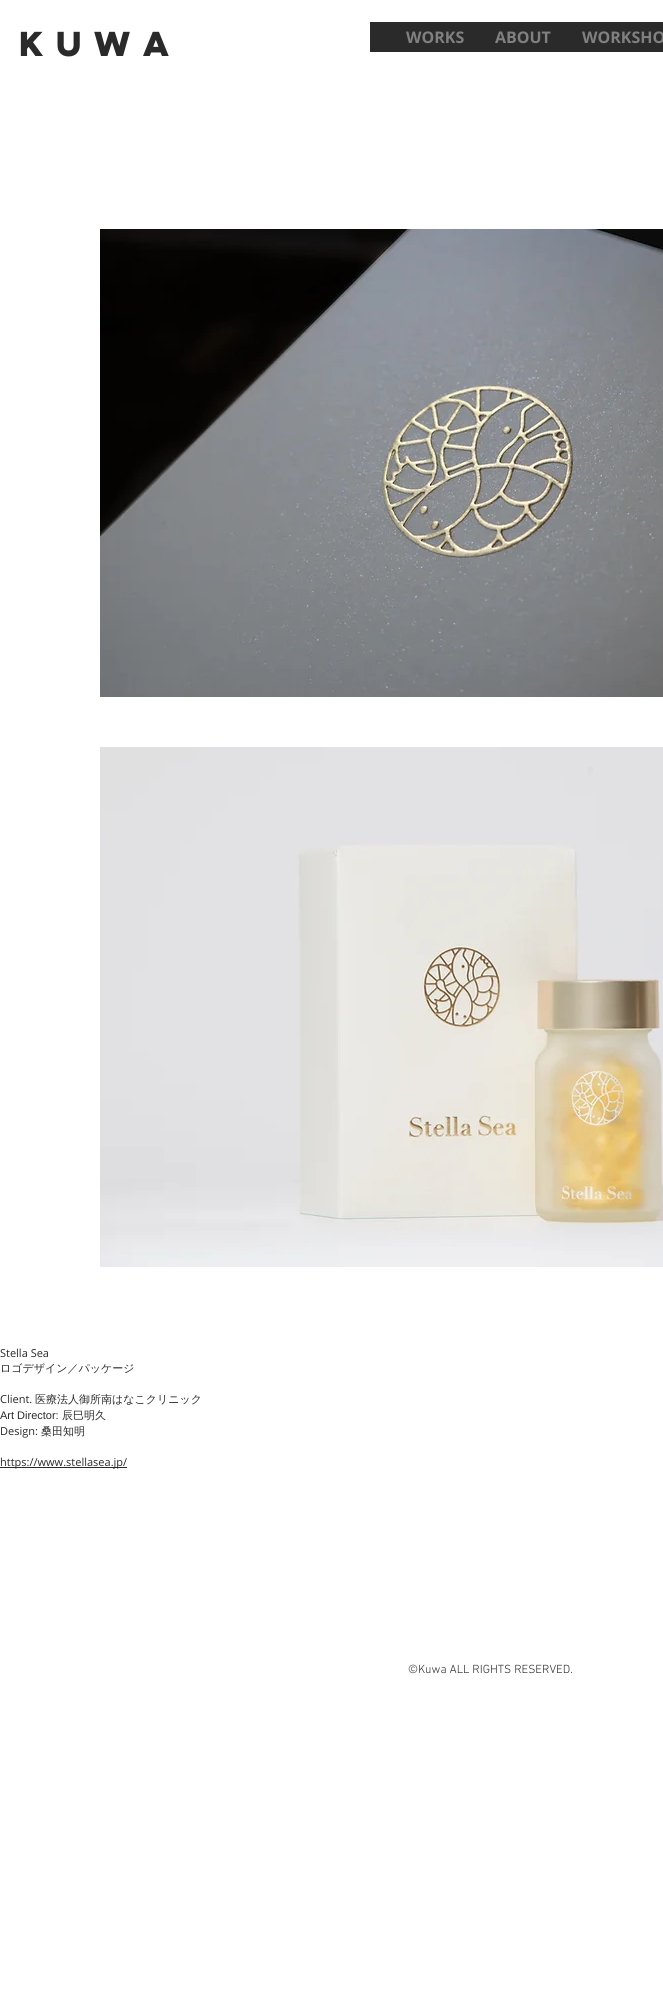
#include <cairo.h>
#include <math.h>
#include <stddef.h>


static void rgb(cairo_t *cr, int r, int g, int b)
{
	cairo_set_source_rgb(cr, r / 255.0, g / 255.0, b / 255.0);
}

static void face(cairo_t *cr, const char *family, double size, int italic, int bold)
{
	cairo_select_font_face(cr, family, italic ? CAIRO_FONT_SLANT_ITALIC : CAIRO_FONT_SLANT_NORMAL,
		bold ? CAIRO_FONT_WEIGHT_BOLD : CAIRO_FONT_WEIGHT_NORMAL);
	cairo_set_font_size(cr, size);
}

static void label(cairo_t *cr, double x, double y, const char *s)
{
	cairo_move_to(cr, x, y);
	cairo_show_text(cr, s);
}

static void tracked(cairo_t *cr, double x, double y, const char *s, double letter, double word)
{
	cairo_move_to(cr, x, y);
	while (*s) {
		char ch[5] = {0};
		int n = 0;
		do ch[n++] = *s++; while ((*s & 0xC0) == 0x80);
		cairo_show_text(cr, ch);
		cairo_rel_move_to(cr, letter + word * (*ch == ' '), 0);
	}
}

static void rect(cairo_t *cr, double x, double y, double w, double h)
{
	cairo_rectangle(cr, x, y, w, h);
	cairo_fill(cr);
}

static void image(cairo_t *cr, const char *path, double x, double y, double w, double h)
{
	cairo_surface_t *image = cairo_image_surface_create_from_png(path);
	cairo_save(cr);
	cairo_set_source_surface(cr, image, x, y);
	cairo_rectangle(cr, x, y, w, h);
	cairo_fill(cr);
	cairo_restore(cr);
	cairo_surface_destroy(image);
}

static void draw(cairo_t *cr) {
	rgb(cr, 255, 255, 255);
	cairo_paint(cr);
	face(cr, "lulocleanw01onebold", 31, 0, 1);
	rgb(cr, 42, 42, 42);
	tracked(cr, 19, 56, "Kuwa", 6, 0);
	rect(cr, 370, 22, 293, 30);
	face(cr, "Open Sans", 16, 0, 1);
	rgb(cr, 128, 128, 128);
	label(cr, 406, 43, "WORKS");
	label(cr, 495, 43, "ABOUT");
	label(cr, 582, 43, "WORKSHO");
	image(cr, "image0.png", 100, 229, 563, 468);
	image(cr, "image1.png", 100, 747, 563, 520);
	face(cr, "Open Sans", 11, 0, 0);
	rgb(cr, 42, 42, 42);
	label(cr, 0, 1357, "Stella Sea");
	face(cr, "WenQuanYi Zen Hei Medium", 11, 0, 0);
	label(cr, 0, 1372, "ロゴデザイン／パッケージ");
	face(cr, "Open Sans", 11, 0, 0);
	label(cr, 0, 1403, "Client.");
	face(cr, "WenQuanYi Zen Hei Medium", 11, 0, 0);
	label(cr, 35, 1403, "医療法人御所南はなこクリニック");
	face(cr, "Liberation Sans", 11, 0, 0);
	label(cr, 0, 1419, "Art Director:");
	face(cr, "WenQuanYi Zen Hei Medium", 11, 0, 0);
	label(cr, 62, 1419, "辰巳明久");
	face(cr, "Open Sans", 11, 0, 0);
	label(cr, 0, 1435, "Design:");
	face(cr, "WenQuanYi Zen Hei Medium", 11, 0, 0);
	label(cr, 41, 1435, "桑田知明");
	rect(cr, 0, 1467, 127, 1);
	face(cr, "Open Sans", 11, 0, 0);
	label(cr, 0, 1466, "https://www.stellasea.jp/");
	face(cr, "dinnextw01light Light", 12, 0, 0);
	label(cr, 408, 1673, "©Kuwa ALL RIGHTS RESERVED.");
}

int main(void) {
	cairo_surface_t *surface = cairo_image_surface_create(CAIRO_FORMAT_RGB24, 663, 2010);
	cairo_t *cr = cairo_create(surface);
	cairo_font_options_t *options = cairo_font_options_create();
	cairo_font_options_set_hint_metrics(options, CAIRO_HINT_METRICS_OFF);
	cairo_font_options_set_hint_style(options, CAIRO_HINT_STYLE_NONE);
	cairo_set_font_options(cr, options);
	cairo_set_miter_limit(cr, 4);
	draw(cr);
	cairo_surface_write_to_png(surface, "render.png");
	cairo_font_options_destroy(options);
	cairo_destroy(cr);
	cairo_surface_destroy(surface);
	return 0;
}
